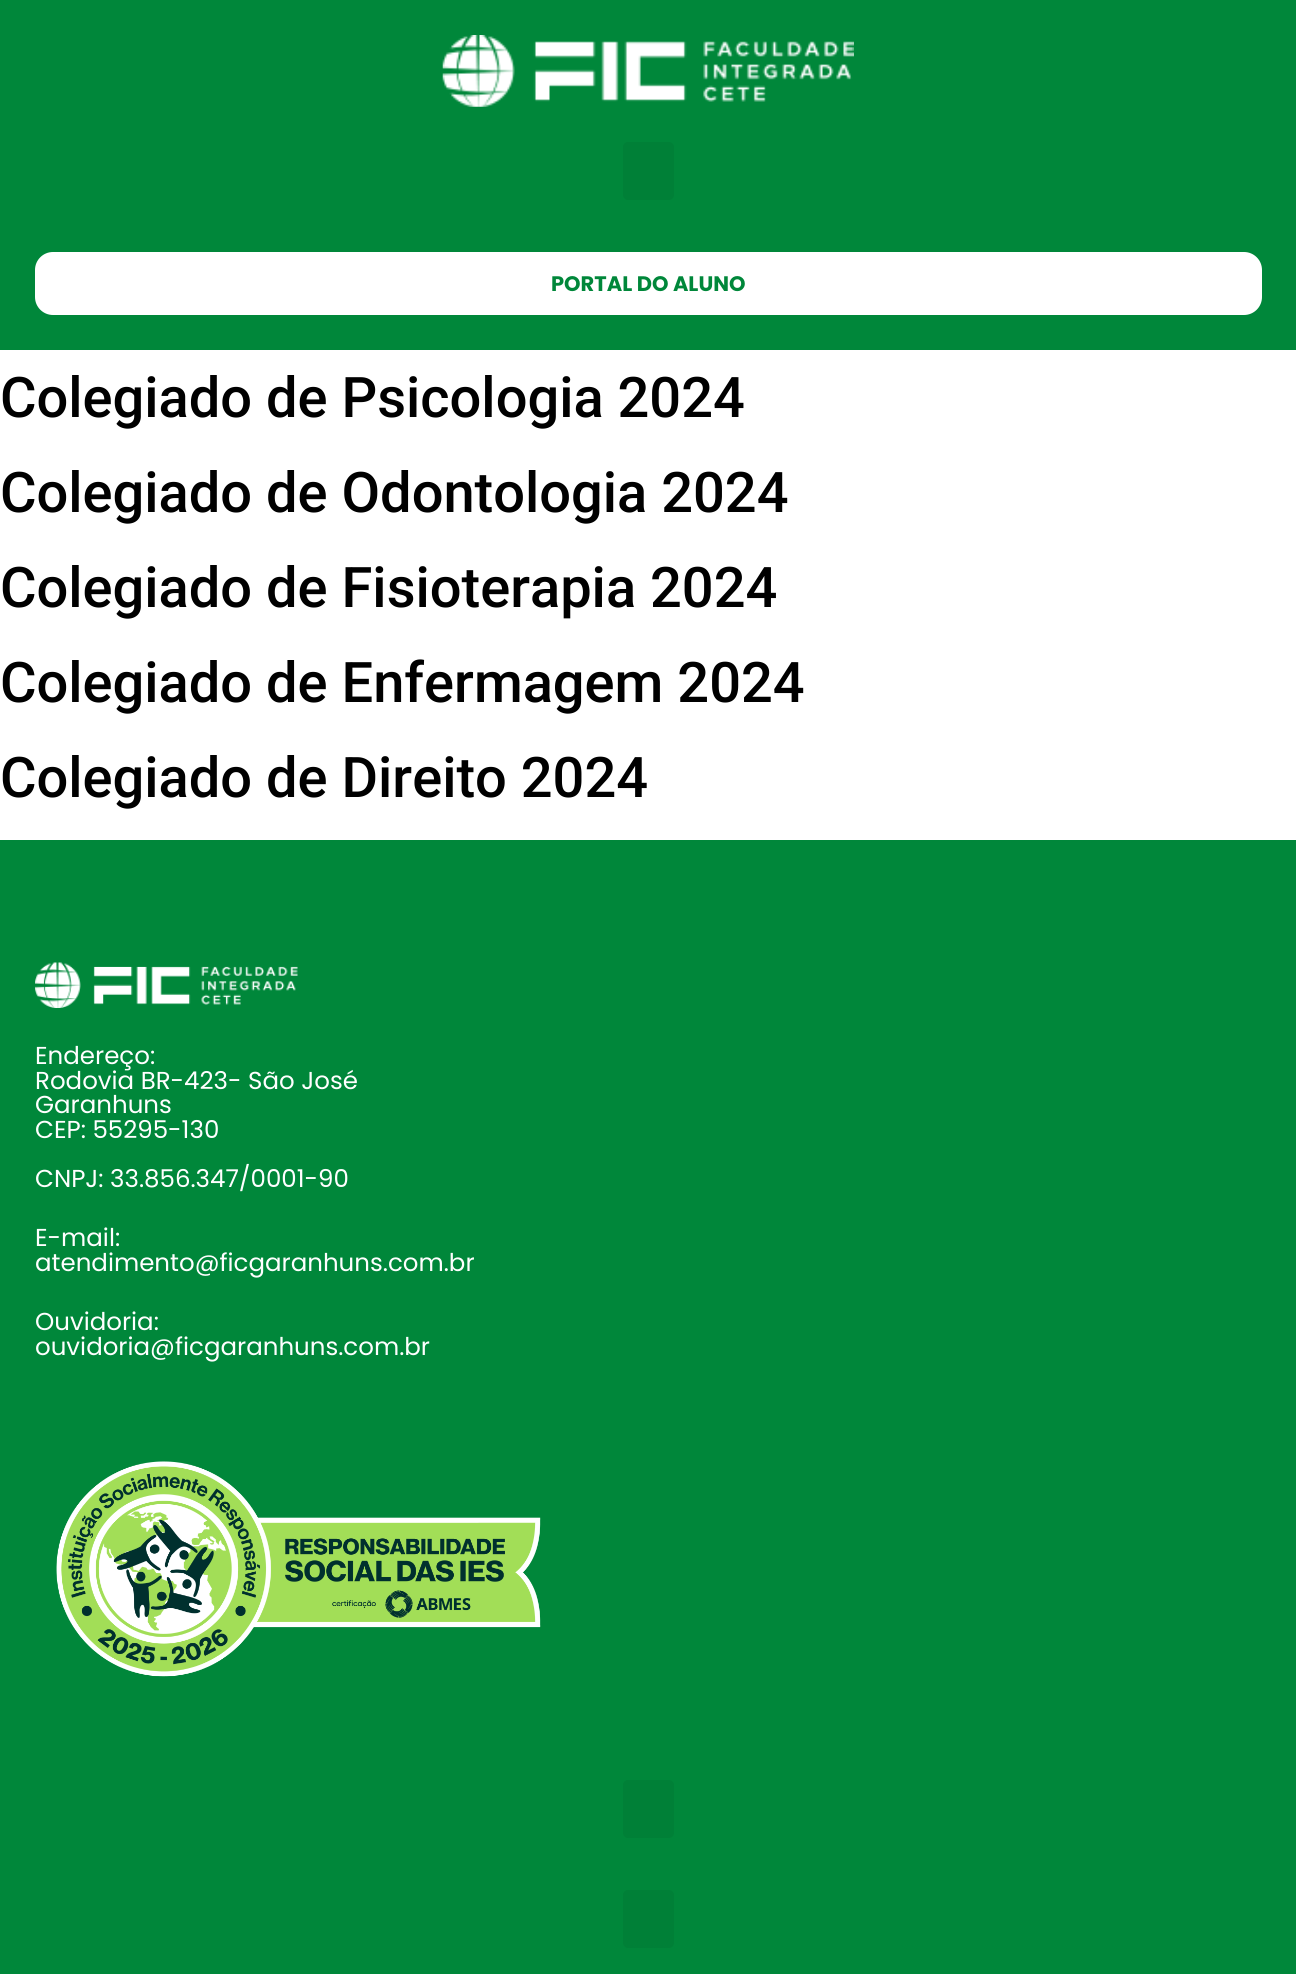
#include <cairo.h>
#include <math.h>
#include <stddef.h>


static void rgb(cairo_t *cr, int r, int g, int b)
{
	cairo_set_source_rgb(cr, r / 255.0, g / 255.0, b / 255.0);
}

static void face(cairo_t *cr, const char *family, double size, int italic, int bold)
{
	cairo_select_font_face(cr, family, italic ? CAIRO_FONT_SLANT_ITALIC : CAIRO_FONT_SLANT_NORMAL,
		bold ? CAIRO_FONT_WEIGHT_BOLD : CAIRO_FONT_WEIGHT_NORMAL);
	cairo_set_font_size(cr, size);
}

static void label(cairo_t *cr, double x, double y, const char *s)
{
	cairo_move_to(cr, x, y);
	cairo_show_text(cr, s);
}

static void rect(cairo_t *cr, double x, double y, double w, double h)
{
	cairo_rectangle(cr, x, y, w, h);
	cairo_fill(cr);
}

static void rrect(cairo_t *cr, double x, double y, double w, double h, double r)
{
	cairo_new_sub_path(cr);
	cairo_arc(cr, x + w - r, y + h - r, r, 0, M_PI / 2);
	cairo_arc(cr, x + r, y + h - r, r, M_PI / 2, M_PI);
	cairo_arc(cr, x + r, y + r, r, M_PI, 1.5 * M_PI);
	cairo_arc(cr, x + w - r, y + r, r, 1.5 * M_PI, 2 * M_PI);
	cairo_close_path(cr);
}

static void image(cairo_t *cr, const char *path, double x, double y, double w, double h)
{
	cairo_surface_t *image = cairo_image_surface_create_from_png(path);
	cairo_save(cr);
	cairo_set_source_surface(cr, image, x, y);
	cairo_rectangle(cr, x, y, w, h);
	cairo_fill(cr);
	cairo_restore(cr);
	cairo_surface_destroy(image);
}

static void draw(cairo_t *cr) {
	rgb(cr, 255, 255, 255);
	cairo_paint(cr);
	rgb(cr, 0, 135, 58);
	rect(cr, 0, 0, 1296, 350);
	image(cr, "image0.png", 442, 35, 412, 72);
	rgb(cr, 0, 128, 55);
	rrect(cr, 623, 142, 51, 58, 5);
	cairo_fill(cr);
	rgb(cr, 255, 255, 255);
	rrect(cr, 35, 252, 1227, 63, 18);
	cairo_fill(cr);
	face(cr, "Poppins", 21, 0, 1);
	rgb(cr, 0, 135, 58);
	label(cr, 551, 291, "PORTAL DO ALUNO");
	face(cr, "Roboto Medium", 56, 0, 0);
	rgb(cr, 0, 0, 0);
	label(cr, 0, 417, "Colegiado de Psicologia 2024");
	label(cr, 0, 512, "Colegiado de Odontologia 2024");
	label(cr, 0, 607, "Colegiado de Fisioterapia 2024");
	label(cr, 0, 702, "Colegiado de Enfermagem 2024");
	label(cr, 0, 797, "Colegiado de Direito 2024");
	rgb(cr, 0, 135, 58);
	rect(cr, 0, 840, 1296, 1134);
	image(cr, "image1.png", 35, 962, 263, 46);
	face(cr, "Poppins", 24.5, 0, 0);
	rgb(cr, 255, 255, 255);
	label(cr, 35, 1064, "Endereço:");
	label(cr, 35, 1089, "Rodovia BR-423- São José");
	label(cr, 35, 1113, "Garanhuns");
	label(cr, 35, 1138, "CEP: 55295-130");
	label(cr, 35, 1187, "CNPJ: 33.856.347/0001-90");
	label(cr, 35, 1246, "E-mail:");
	label(cr, 35, 1271, "atendimento@ficgaranhuns.com.br");
	label(cr, 35, 1330, "Ouvidoria:");
	label(cr, 35, 1355, "ouvidoria@ficgaranhuns.com.br");
	image(cr, "image2.png", 56, 1461, 485, 216);
	rgb(cr, 0, 128, 55);
	rrect(cr, 623, 1780, 51, 58, 5);
	cairo_fill(cr);
	rrect(cr, 623, 1890, 51, 58, 5);
	cairo_fill(cr);
}

int main(void) {
	cairo_surface_t *surface = cairo_image_surface_create(CAIRO_FORMAT_RGB24, 1296, 1974);
	cairo_t *cr = cairo_create(surface);
	cairo_font_options_t *options = cairo_font_options_create();
	cairo_font_options_set_hint_metrics(options, CAIRO_HINT_METRICS_OFF);
	cairo_font_options_set_hint_style(options, CAIRO_HINT_STYLE_NONE);
	cairo_set_font_options(cr, options);
	cairo_set_miter_limit(cr, 4);
	draw(cr);
	cairo_surface_write_to_png(surface, "render.png");
	cairo_font_options_destroy(options);
	cairo_destroy(cr);
	cairo_surface_destroy(surface);
	return 0;
}
